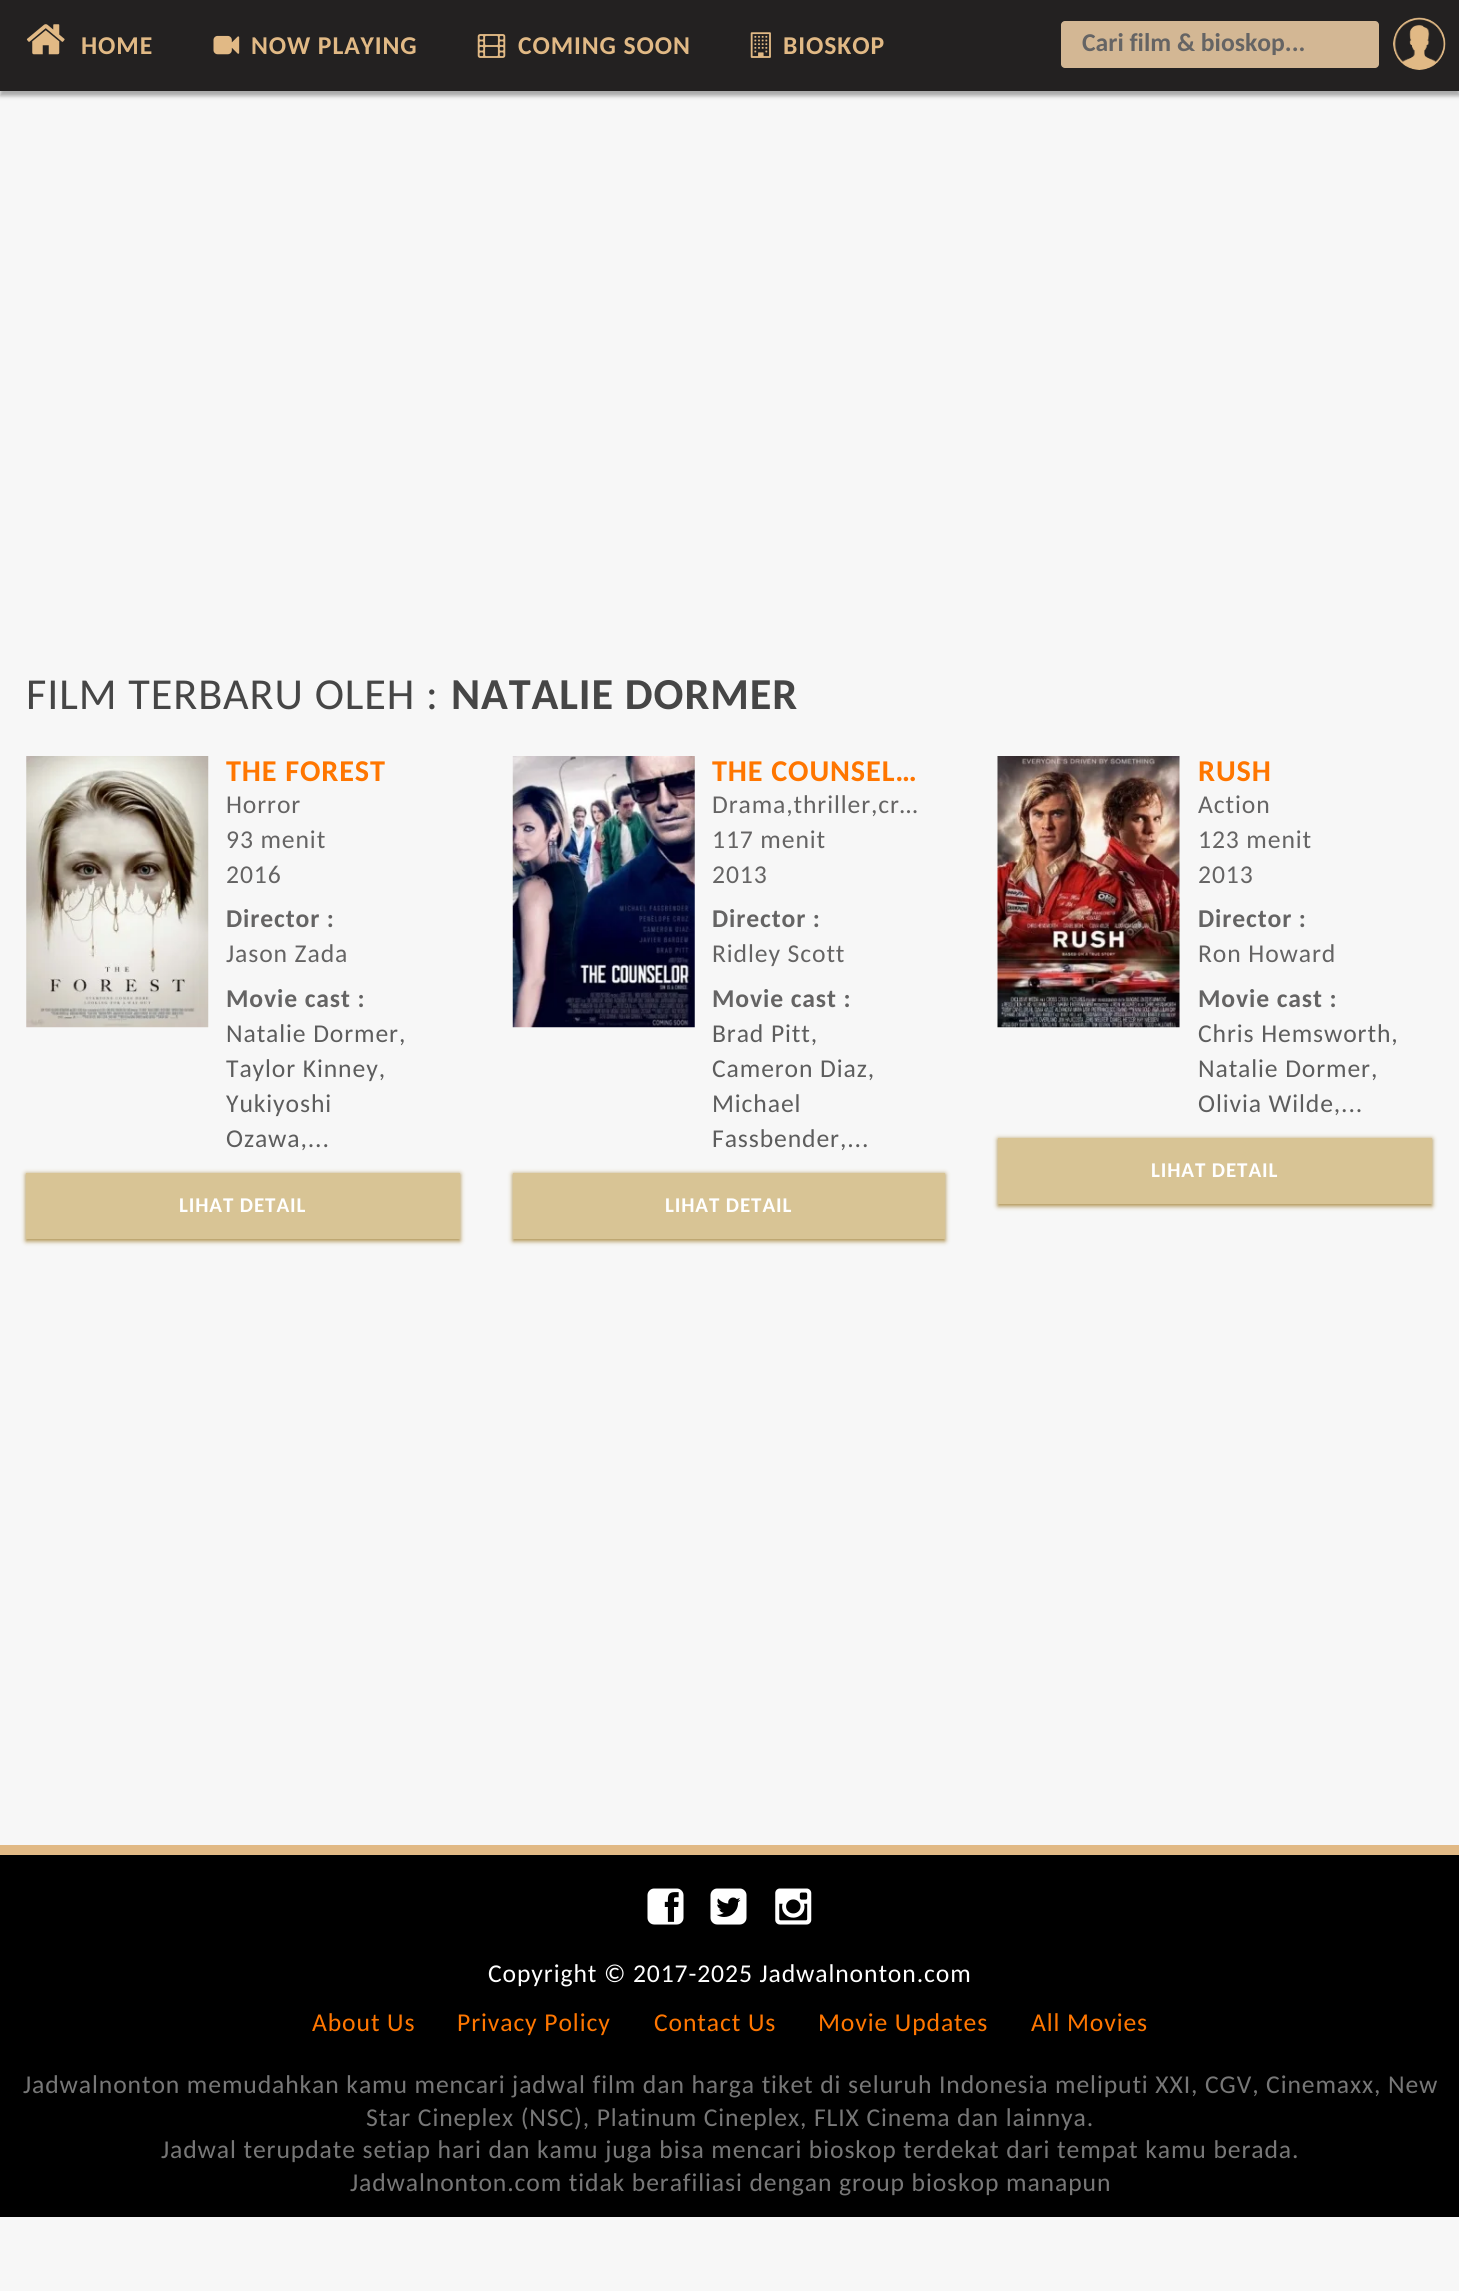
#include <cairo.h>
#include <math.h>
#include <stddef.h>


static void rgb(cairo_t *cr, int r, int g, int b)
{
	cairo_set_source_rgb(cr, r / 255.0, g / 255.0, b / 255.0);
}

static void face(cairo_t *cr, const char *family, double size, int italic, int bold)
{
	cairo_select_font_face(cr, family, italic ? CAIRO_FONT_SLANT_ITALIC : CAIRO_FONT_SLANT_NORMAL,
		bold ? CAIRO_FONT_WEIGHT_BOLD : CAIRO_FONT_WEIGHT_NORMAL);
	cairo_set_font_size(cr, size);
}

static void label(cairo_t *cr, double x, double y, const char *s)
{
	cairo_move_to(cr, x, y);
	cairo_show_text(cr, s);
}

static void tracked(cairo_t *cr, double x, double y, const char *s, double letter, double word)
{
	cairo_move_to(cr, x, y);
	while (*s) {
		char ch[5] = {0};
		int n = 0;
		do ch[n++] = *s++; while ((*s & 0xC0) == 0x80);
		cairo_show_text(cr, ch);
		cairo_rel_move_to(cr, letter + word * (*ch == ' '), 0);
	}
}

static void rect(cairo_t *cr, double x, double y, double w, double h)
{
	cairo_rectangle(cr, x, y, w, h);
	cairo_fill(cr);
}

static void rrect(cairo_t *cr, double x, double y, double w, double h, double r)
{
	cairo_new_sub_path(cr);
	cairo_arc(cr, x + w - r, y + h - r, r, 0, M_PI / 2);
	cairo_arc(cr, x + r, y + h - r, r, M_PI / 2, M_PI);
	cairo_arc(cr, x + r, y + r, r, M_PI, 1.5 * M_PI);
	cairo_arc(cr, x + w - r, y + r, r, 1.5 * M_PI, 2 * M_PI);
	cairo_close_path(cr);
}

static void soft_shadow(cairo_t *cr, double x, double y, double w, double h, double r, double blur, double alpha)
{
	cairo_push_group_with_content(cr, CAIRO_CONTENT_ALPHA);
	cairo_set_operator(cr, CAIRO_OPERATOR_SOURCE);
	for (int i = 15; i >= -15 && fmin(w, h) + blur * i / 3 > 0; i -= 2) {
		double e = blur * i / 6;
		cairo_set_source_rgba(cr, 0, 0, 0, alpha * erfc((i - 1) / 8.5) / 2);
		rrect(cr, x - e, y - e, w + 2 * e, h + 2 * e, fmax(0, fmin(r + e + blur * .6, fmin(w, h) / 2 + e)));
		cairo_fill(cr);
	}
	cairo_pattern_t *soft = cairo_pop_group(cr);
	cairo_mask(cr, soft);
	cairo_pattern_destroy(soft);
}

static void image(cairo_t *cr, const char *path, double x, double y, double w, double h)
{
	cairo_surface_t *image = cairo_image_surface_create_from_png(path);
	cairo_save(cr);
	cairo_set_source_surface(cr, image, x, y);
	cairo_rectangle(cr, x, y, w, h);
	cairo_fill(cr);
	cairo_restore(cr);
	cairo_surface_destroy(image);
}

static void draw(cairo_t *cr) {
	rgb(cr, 247, 247, 247);
	cairo_paint(cr);
	rgb(cr, 170, 170, 170);
	soft_shadow(cr, 0, 5, 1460, 91, 0, 2, 1);
	rgb(cr, 35, 33, 33);
	rect(cr, 0, 0, 1459, 91);
	image(cr, "image0.png", 26, 24, 39, 31);
	face(cr, "Carlito", 25.67, 0, 1);
	rgb(cr, 225, 185, 133);
	tracked(cr, 81, 54, "HOME", 0.88, 0);
	image(cr, "image1.png", 213, 35, 27, 20);
	tracked(cr, 251, 54, "NOW PLAYING", 0.88, 0);
	image(cr, "image2.png", 477, 34, 29, 24);
	tracked(cr, 518, 54, "COMING SOON", 0.88, 0);
	image(cr, "image3.png", 750, 32, 21, 26);
	tracked(cr, 783, 54, "BIOSKOP", 0.88, 0);
	rgb(cr, 211, 183, 148);
	rrect(cr, 1061, 21, 318, 47, 4);
	cairo_fill(cr);
	rgb(cr, 101, 100, 100);
	label(cr, 1082, 51, "Cari film & bioskop...");
	image(cr, "image4.png", 1393, 17, 53, 53);
	face(cr, "Carlito", 44.25, 0, 0);
	rgb(cr, 70, 70, 70);
	tracked(cr, 26, 709, "FILM TERBARU OLEH :", 0.88, 0);
	face(cr, "Carlito", 44.25, 0, 1);
	tracked(cr, 451, 709, "NATALIE DORMER", 0.88, 0);
	image(cr, "image5.png", 26, 756, 183, 272);
	cairo_save(cr);
	cairo_rectangle(cr, 226, 756, 208, 32);
	cairo_clip(cr);
	face(cr, "Carlito", 30.25, 0, 1);
	rgb(cr, 255, 118, 0);
	tracked(cr, 226, 781, "THE FOREST", 0.88, 0);
	cairo_restore(cr);
	face(cr, "Carlito", 25.67, 0, 0);
	rgb(cr, 101, 100, 100);
	tracked(cr, 226, 813, "Horror", 0.88, 0);
	tracked(cr, 226, 848, "93 menit", 0.88, 0);
	tracked(cr, 226, 883, "2016", 0.88, 0);
	face(cr, "Carlito", 25.67, 0, 1);
	tracked(cr, 226, 927, "Director :", 0.88, 0);
	face(cr, "Carlito", 25.67, 0, 0);
	tracked(cr, 226, 962, "Jason Zada", 0.88, 0);
	face(cr, "Carlito", 25.67, 0, 1);
	tracked(cr, 226, 1007, "Movie cast :", 0.88, 0);
	face(cr, "Carlito", 25.67, 0, 0);
	rgb(cr, 93, 93, 93);
	tracked(cr, 226, 1042, "Natalie Dormer,", 0.88, 0);
	tracked(cr, 226, 1077, "Taylor Kinney,", 0.88, 0);
	tracked(cr, 226, 1112, "Yukiyoshi", 0.88, 0);
	tracked(cr, 226, 1147, "Ozawa,...", 0.88, 0);
	rgb(cr, 167, 135, 61);
	soft_shadow(cr, 26, 1174, 434, 67, 0, 2.5, 1);
	rgb(cr, 216, 196, 149);
	rect(cr, 26, 1173, 434, 66);
	face(cr, "Carlito", 21, 0, 1);
	rgb(cr, 255, 255, 255);
	tracked(cr, 179, 1212, "LIHAT DETAIL", 0.88, 0);
	image(cr, "image6.png", 512, 756, 183, 272);
	cairo_save(cr);
	cairo_rectangle(cr, 712, 756, 207, 32);
	cairo_clip(cr);
	face(cr, "Carlito", 30.25, 0, 1);
	rgb(cr, 255, 118, 0);
	tracked(cr, 712, 781, "THE COUNSEL…", 0.88, 0);
	cairo_restore(cr);
	face(cr, "Carlito", 25.67, 0, 0);
	rgb(cr, 101, 100, 100);
	tracked(cr, 712, 813, "Drama,thriller,cr…", 0.88, 0);
	tracked(cr, 712, 848, "117 menit", 0.88, 0);
	tracked(cr, 712, 883, "2013", 0.88, 0);
	face(cr, "Carlito", 25.67, 0, 1);
	tracked(cr, 712, 927, "Director :", 0.88, 0);
	face(cr, "Carlito", 25.67, 0, 0);
	tracked(cr, 712, 962, "Ridley Scott", 0.88, 0);
	face(cr, "Carlito", 25.67, 0, 1);
	tracked(cr, 712, 1007, "Movie cast :", 0.88, 0);
	face(cr, "Carlito", 25.67, 0, 0);
	rgb(cr, 93, 93, 93);
	tracked(cr, 712, 1042, "Brad Pitt,", 0.88, 0);
	tracked(cr, 712, 1077, "Cameron Diaz,", 0.88, 0);
	tracked(cr, 712, 1112, "Michael", 0.88, 0);
	tracked(cr, 712, 1147, "Fassbender,...", 0.88, 0);
	rgb(cr, 167, 135, 61);
	soft_shadow(cr, 513, 1174, 432, 67, 0, 2.5, 1);
	rgb(cr, 216, 196, 149);
	rect(cr, 513, 1173, 432, 66);
	face(cr, "Carlito", 21, 0, 1);
	rgb(cr, 255, 255, 255);
	tracked(cr, 665, 1212, "LIHAT DETAIL", 0.88, 0);
	image(cr, "image7.png", 997, 756, 183, 272);
	face(cr, "Carlito", 30.25, 0, 1);
	rgb(cr, 255, 118, 0);
	tracked(cr, 1198, 781, "RUSH", 0.88, 0);
	face(cr, "Carlito", 25.67, 0, 0);
	rgb(cr, 101, 100, 100);
	tracked(cr, 1198, 813, "Action", 0.88, 0);
	tracked(cr, 1198, 848, "123 menit", 0.88, 0);
	tracked(cr, 1198, 883, "2013", 0.88, 0);
	face(cr, "Carlito", 25.67, 0, 1);
	tracked(cr, 1198, 927, "Director :", 0.88, 0);
	face(cr, "Carlito", 25.67, 0, 0);
	tracked(cr, 1198, 962, "Ron Howard", 0.88, 0);
	face(cr, "Carlito", 25.67, 0, 1);
	tracked(cr, 1198, 1007, "Movie cast :", 0.88, 0);
	face(cr, "Carlito", 25.67, 0, 0);
	rgb(cr, 93, 93, 93);
	tracked(cr, 1198, 1042, "Chris Hemsworth,", 0.88, 0);
	tracked(cr, 1198, 1077, "Natalie Dormer,", 0.88, 0);
	tracked(cr, 1198, 1112, "Olivia Wilde,...", 0.88, 0);
	rgb(cr, 167, 135, 61);
	soft_shadow(cr, 998, 1139, 434, 67, 0, 2.5, 1);
	rgb(cr, 216, 196, 149);
	rect(cr, 998, 1138, 434, 66);
	face(cr, "Carlito", 21, 0, 1);
	rgb(cr, 255, 255, 255);
	tracked(cr, 1151, 1177, "LIHAT DETAIL", 0.88, 0);
	rgb(cr, 0, 0, 0);
	rect(cr, 0, 1855, 1459, 362);
	rgb(cr, 225, 185, 133);
	rect(cr, 0, 1845, 1459, 10);
	image(cr, "image8.png", 647, 1888, 37, 37);
	image(cr, "image9.png", 710, 1888, 37, 37);
	image(cr, "image10.png", 775, 1888, 37, 37);
	face(cr, "Carlito", 25.67, 0, 0);
	rgb(cr, 255, 255, 255);
	tracked(cr, 488, 1982, "Copyright © 2017-2025 Jadwalnonton.com", 0.88, 0);
	rgb(cr, 255, 118, 0);
	tracked(cr, 312, 2031, "About Us", 0.88, 0);
	tracked(cr, 457, 2031, "Privacy Policy", 0.88, 0);
	tracked(cr, 654, 2031, "Contact Us", 0.88, 0);
	tracked(cr, 818, 2031, "Movie Updates", 0.88, 0);
	tracked(cr, 1031, 2031, "All Movies", 0.88, 0);
	rgb(cr, 119, 119, 119);
	tracked(cr, 23, 2093, "Jadwalnonton memudahkan kamu mencari jadwal film dan harga tiket di seluruh Indonesia meliputi XXI, CGV, Cinemaxx, New", 0.88, 0);
	tracked(cr, 366, 2126, "Star Cineplex (NSC), Platinum Cineplex, FLIX Cinema dan lainnya.", 0.88, 0);
	tracked(cr, 161, 2158, "Jadwal terupdate setiap hari dan kamu juga bisa mencari bioskop terdekat dari tempat kamu berada.", 0.88, 0);
	tracked(cr, 350, 2191, "Jadwalnonton.com tidak berafiliasi dengan group bioskop manapun", 0.88, 0);
}

int main(void) {
	cairo_surface_t *surface = cairo_image_surface_create(CAIRO_FORMAT_RGB24, 1459, 2291);
	cairo_t *cr = cairo_create(surface);
	cairo_font_options_t *options = cairo_font_options_create();
	cairo_font_options_set_hint_metrics(options, CAIRO_HINT_METRICS_OFF);
	cairo_font_options_set_hint_style(options, CAIRO_HINT_STYLE_NONE);
	cairo_set_font_options(cr, options);
	cairo_set_miter_limit(cr, 4);
	draw(cr);
	cairo_surface_write_to_png(surface, "render.png");
	cairo_font_options_destroy(options);
	cairo_destroy(cr);
	cairo_surface_destroy(surface);
	return 0;
}
